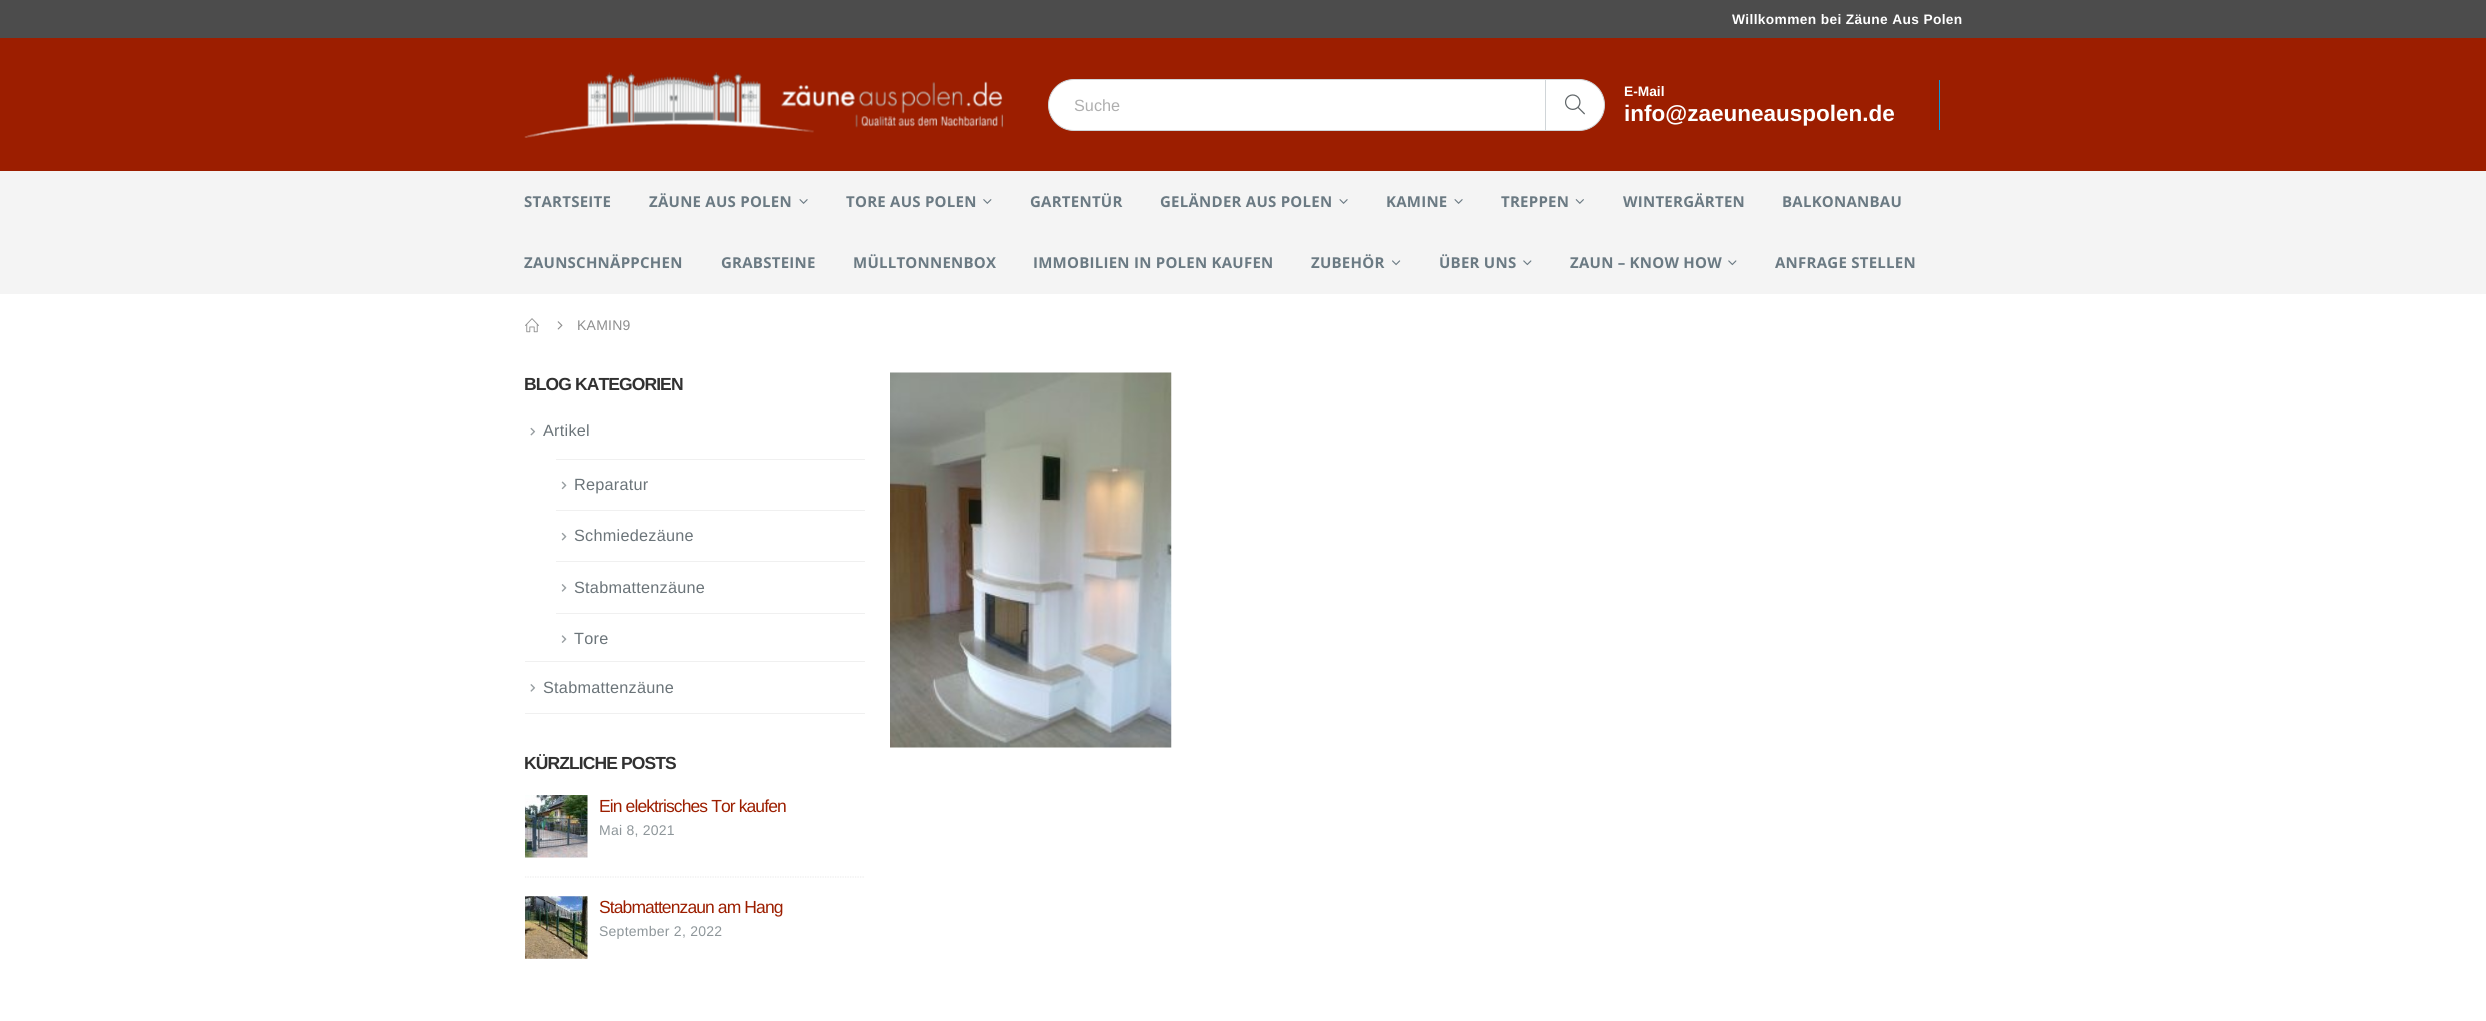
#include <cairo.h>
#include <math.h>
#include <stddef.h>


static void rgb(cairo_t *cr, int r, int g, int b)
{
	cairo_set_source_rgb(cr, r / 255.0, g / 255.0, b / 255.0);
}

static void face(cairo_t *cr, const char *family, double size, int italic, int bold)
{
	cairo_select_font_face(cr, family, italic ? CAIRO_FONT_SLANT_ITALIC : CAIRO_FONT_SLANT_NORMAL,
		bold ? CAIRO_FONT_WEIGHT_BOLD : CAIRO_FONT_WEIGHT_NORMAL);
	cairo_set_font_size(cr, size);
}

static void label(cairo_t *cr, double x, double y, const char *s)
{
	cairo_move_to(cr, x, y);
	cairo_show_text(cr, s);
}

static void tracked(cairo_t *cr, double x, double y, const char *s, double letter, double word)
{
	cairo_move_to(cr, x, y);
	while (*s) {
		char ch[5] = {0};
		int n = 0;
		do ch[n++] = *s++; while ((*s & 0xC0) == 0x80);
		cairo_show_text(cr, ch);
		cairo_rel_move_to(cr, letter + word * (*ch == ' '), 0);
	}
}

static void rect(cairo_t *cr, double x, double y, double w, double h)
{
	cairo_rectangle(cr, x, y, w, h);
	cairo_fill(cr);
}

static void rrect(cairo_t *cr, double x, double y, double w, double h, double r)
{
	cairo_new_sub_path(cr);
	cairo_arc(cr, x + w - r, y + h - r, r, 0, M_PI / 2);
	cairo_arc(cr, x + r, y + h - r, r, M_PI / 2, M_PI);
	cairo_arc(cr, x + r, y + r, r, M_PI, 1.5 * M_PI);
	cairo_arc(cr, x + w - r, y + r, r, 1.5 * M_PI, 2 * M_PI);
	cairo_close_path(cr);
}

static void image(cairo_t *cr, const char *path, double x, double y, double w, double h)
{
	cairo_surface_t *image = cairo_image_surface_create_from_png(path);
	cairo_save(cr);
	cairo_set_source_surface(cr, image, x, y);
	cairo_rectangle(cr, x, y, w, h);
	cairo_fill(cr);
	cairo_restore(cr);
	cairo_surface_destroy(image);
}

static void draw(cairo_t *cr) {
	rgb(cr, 255, 255, 255);
	cairo_paint(cr);
	rgb(cr, 76, 76, 76);
	rect(cr, 0, 0, 2486, 38);
	face(cr, "Liberation Sans", 13.75, 0, 1);
	rgb(cr, 255, 255, 255);
	tracked(cr, 1732, 24, "Willkommen bei Zäune Aus Polen", 0.35, 0);
	rgb(cr, 156, 30, 0);
	rect(cr, 0, 38, 2486, 133);
	image(cr, "image0.png", 524, 72, 480, 66);
	rgb(cr, 255, 255, 255);
	rrect(cr, 1048.5, 79.5, 556, 51, 25.5);
	cairo_fill_preserve(cr);
	rgb(cr, 208, 213, 216);
	cairo_set_line_width(cr, 1);
	cairo_stroke(cr);
	rect(cr, 1545, 80, 1, 50);
	face(cr, "Liberation Sans", 16.25, 0, 0);
	rgb(cr, 175, 175, 175);
	label(cr, 1074, 111, "Suche");
	image(cr, "image1.png", 1565, 94, 20, 21);
	rgb(cr, 14, 149, 217);
	rect(cr, 1939, 80, 1, 50);
	face(cr, "Liberation Sans", 13.75, 0, 1);
	rgb(cr, 255, 255, 255);
	label(cr, 1624, 96, "E-Mail");
	face(cr, "Liberation Sans", 22.5, 0, 1);
	label(cr, 1624, 121, "info@zaeuneauspolen.de");
	rgb(cr, 244, 244, 244);
	rect(cr, 0, 171, 2486, 123);
	face(cr, "Open Sans", 15, 0, 1);
	rgb(cr, 107, 122, 131);
	tracked(cr, 524, 207, "STARTSEITE", 0.25, 0);
	tracked(cr, 649, 207, "ZÄUNE AUS POLEN", 0.25, 0);
	image(cr, "image2.png", 799, 199, 9, 5);
	tracked(cr, 846, 207, "TORE AUS POLEN", 0.25, 0);
	image(cr, "image3.png", 983, 199, 9, 5);
	tracked(cr, 1030, 207, "GARTENTÜR", 0.25, 0);
	tracked(cr, 1160, 207, "GELÄNDER AUS POLEN", 0.25, 0);
	image(cr, "image2.png", 1339, 199, 9, 5);
	tracked(cr, 1386, 207, "KAMINE", 0.25, 0);
	image(cr, "image2.png", 1454, 199, 9, 5);
	tracked(cr, 1501, 207, "TREPPEN", 0.25, 0);
	image(cr, "image4.png", 1575, 199, 9, 5);
	tracked(cr, 1623, 207, "WINTERGÄRTEN", 0.25, 0);
	tracked(cr, 1782, 207, "BALKONANBAU", 0.25, 0);
	tracked(cr, 524, 268, "ZAUNSCHNÄPPCHEN", 0.25, 0);
	tracked(cr, 721, 268, "GRABSTEINE", 0.25, 0);
	tracked(cr, 853, 268, "MÜLLTONNENBOX", 0.25, 0);
	tracked(cr, 1033, 268, "IMMOBILIEN IN POLEN KAUFEN", 0.25, 0);
	tracked(cr, 1311, 268, "ZUBEHÖR", 0.25, 0);
	image(cr, "image5.png", 1392, 260, 9, 6);
	tracked(cr, 1439, 268, "ÜBER UNS", 0.25, 0);
	image(cr, "image6.png", 1523, 260, 9, 6);
	tracked(cr, 1570, 268, "ZAUN – KNOW HOW", 0.25, 0);
	image(cr, "image6.png", 1728, 260, 9, 6);
	tracked(cr, 1775, 268, "ANFRAGE STELLEN", 0.25, 0);
	image(cr, "image7.png", 525, 318, 14, 15);
	image(cr, "image8.png", 557, 321, 6, 9);
	face(cr, "Liberation Sans", 14, 0, 0);
	rgb(cr, 142, 142, 142);
	tracked(cr, 577, 330, "KAMIN9", 0.25, 0);
	face(cr, "Liberation Sans", 17.5, 0, 1);
	rgb(cr, 49, 49, 49);
	tracked(cr, 524, 390, "BLOG KATEGORIEN", -0.9, 0);
	rgb(cr, 240, 240, 240);
	rect(cr, 525, 713, 340, 1);
	image(cr, "image9.png", 530, 427, 6, 9);
	face(cr, "Liberation Sans", 16.25, 0, 0);
	rgb(cr, 107, 116, 121);
	tracked(cr, 543, 436, "Artikel", 0.25, 0);
	rgb(cr, 240, 240, 240);
	rect(cr, 556, 459, 309, 1);
	image(cr, "image10.png", 561, 481, 6, 9);
	rgb(cr, 107, 116, 121);
	tracked(cr, 574, 490, "Reparatur", 0.25, 0);
	rgb(cr, 240, 240, 240);
	rect(cr, 556, 510, 309, 1);
	image(cr, "image11.png", 561, 532, 6, 9);
	rgb(cr, 107, 116, 121);
	tracked(cr, 574, 541, "Schmiedezäune", 0.25, 0);
	rgb(cr, 240, 240, 240);
	rect(cr, 556, 561, 309, 1);
	image(cr, "image12.png", 561, 584, 6, 8);
	rgb(cr, 107, 116, 121);
	tracked(cr, 574, 593, "Stabmattenzäune", 0.25, 0);
	rgb(cr, 240, 240, 240);
	rect(cr, 556, 613, 309, 1);
	image(cr, "image13.png", 561, 635, 6, 8);
	rgb(cr, 107, 116, 121);
	tracked(cr, 574, 644, "Tore", 0.25, 0);
	rgb(cr, 240, 240, 240);
	rect(cr, 525, 661, 340, 1);
	image(cr, "image14.png", 530, 684, 6, 8);
	rgb(cr, 107, 116, 121);
	tracked(cr, 543, 693, "Stabmattenzäune", 0.25, 0);
	face(cr, "Liberation Sans", 17.5, 0, 1);
	rgb(cr, 49, 49, 49);
	tracked(cr, 524, 769, "KÜRZLICHE POSTS", -0.9, 0);
	image(cr, "image15.png", 525, 795, 63, 63);
	face(cr, "Liberation Sans", 17.5, 0, 0);
	rgb(cr, 156, 30, 0);
	tracked(cr, 599, 812, "Ein elektrisches Tor kaufen", -0.9, 0);
	face(cr, "Liberation Sans", 14, 0, 0);
	rgb(cr, 142, 150, 154);
	tracked(cr, 599, 835, "Mai 8, 2021", 0.25, 0);
	cairo_new_path(cr);
	cairo_move_to(cr, 525, 877);
	cairo_line_to(cr, 865, 877);
	rgb(cr, 236, 236, 236);
	cairo_set_line_width(cr, 1.2);
	cairo_set_dash(cr, (double[]){1.25, 1.25}, 2, 0);
	cairo_stroke(cr);
	image(cr, "image16.png", 525, 896, 63, 63);
	face(cr, "Liberation Sans", 17.5, 0, 0);
	rgb(cr, 156, 30, 0);
	tracked(cr, 599, 913, "Stabmattenzaun am Hang", -0.9, 0);
	face(cr, "Liberation Sans", 14, 0, 0);
	rgb(cr, 142, 150, 154);
	tracked(cr, 599, 936, "September 2, 2022", 0.25, 0);
	image(cr, "image17.png", 890, 372, 282, 376);
}

int main(void) {
	cairo_surface_t *surface = cairo_image_surface_create(CAIRO_FORMAT_RGB24, 2486, 1021);
	cairo_t *cr = cairo_create(surface);
	cairo_font_options_t *options = cairo_font_options_create();
	cairo_font_options_set_hint_metrics(options, CAIRO_HINT_METRICS_OFF);
	cairo_font_options_set_hint_style(options, CAIRO_HINT_STYLE_NONE);
	cairo_set_font_options(cr, options);
	cairo_set_miter_limit(cr, 4);
	draw(cr);
	cairo_surface_write_to_png(surface, "render.png");
	cairo_font_options_destroy(options);
	cairo_destroy(cr);
	cairo_surface_destroy(surface);
	return 0;
}
